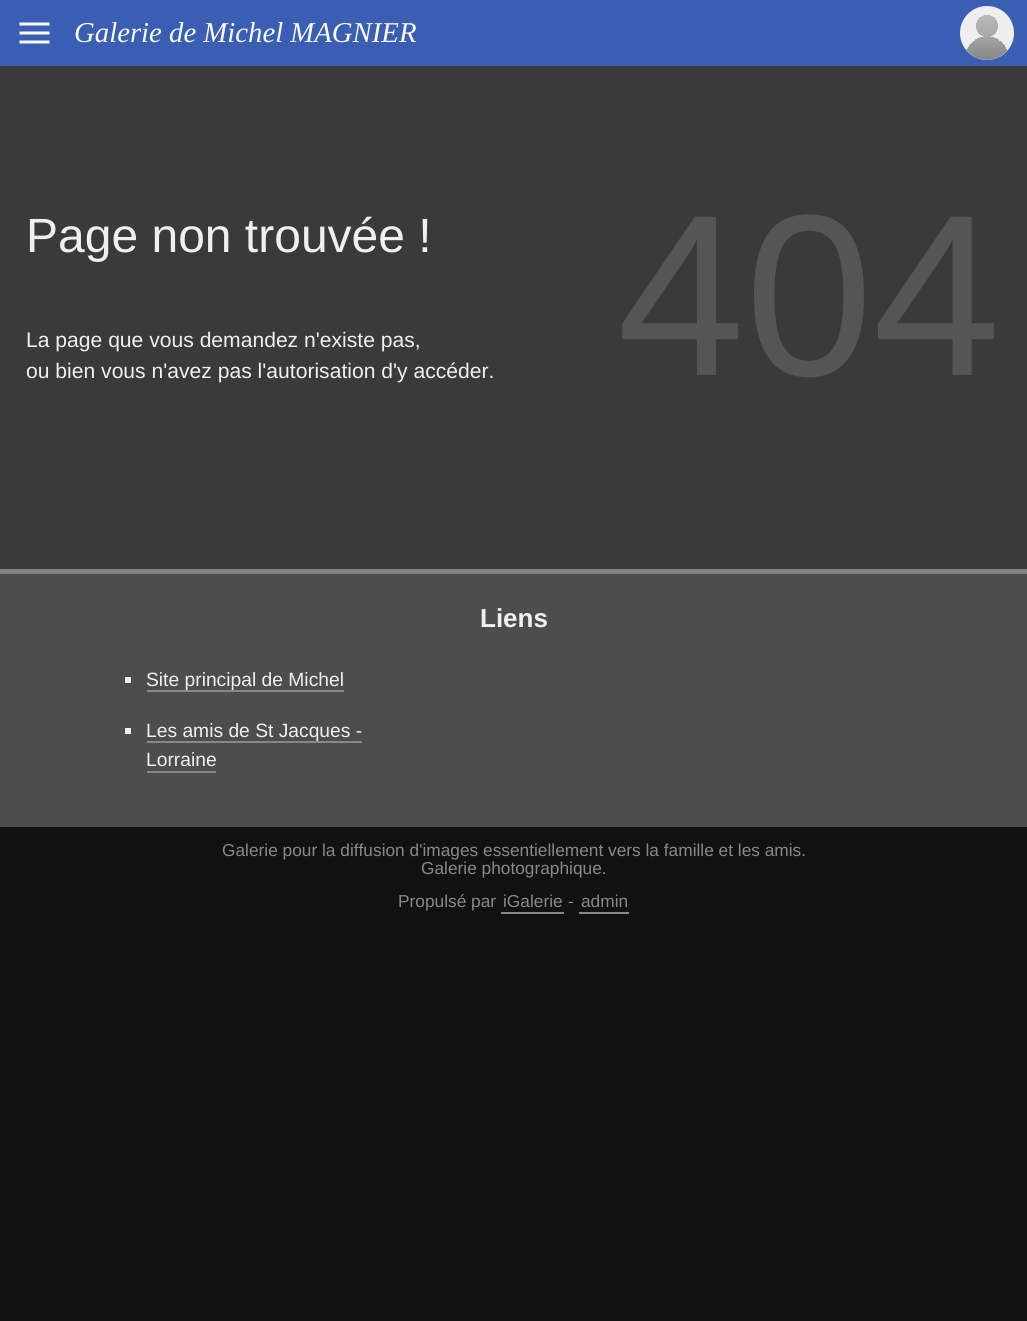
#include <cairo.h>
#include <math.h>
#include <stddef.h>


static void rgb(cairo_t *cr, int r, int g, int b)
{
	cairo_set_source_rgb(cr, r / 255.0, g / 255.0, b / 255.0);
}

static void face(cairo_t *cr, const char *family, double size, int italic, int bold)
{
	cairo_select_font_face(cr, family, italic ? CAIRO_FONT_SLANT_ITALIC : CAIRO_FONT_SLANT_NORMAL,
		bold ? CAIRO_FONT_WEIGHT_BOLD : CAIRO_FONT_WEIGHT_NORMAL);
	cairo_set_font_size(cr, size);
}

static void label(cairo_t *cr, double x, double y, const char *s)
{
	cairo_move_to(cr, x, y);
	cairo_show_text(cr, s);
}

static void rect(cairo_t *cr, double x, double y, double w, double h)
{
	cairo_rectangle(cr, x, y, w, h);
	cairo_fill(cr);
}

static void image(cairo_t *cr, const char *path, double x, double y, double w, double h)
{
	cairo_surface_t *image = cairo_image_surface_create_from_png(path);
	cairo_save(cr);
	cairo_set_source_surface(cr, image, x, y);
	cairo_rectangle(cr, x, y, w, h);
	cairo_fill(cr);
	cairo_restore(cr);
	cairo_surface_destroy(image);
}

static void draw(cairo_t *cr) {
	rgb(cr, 17, 17, 17);
	cairo_paint(cr);
	rgb(cr, 58, 58, 58);
	rect(cr, 0, 66, 1027, 503);
	rgb(cr, 59, 94, 181);
	rect(cr, 0, 0, 1027, 66);
	image(cr, "image0.png", 19, 22, 31, 22);
	face(cr, "Liberation Serif", 28.75, 1, 0);
	rgb(cr, 250, 250, 250);
	label(cr, 74, 42, "Galerie de Michel MAGNIER");
	rgb(cr, 238, 238, 238);
	cairo_new_path(cr);
	cairo_arc(cr, 987, 33, 27, 0, 2 * M_PI);
	cairo_fill(cr);
	image(cr, "image1.png", 966, 15, 42, 45);
	face(cr, "Liberation Sans", 48, 0, 0);
	rgb(cr, 240, 240, 240);
	label(cr, 26, 252, "Page non trouvée !");
	face(cr, "Liberation Sans", 230, 0, 0);
	rgb(cr, 85, 85, 85);
	label(cr, 617, 375, "404");
	face(cr, "Liberation Sans", 21.1, 0, 0);
	rgb(cr, 240, 240, 240);
	label(cr, 26, 347, "La page que vous demandez n'existe pas,");
	label(cr, 26, 378, "ou bien vous n'avez pas l'autorisation d'y accéder.");
	rgb(cr, 77, 77, 77);
	rect(cr, 0, 574, 1027, 253);
	rgb(cr, 128, 128, 128);
	rect(cr, 0, 569, 1027, 5);
	face(cr, "Liberation Sans", 26, 0, 1);
	rgb(cr, 240, 240, 240);
	label(cr, 480, 627, "Liens");
	rect(cr, 125, 677, 6, 6);
	face(cr, "Liberation Sans", 19.25, 0, 0);
	label(cr, 146, 686, "Site principal de Michel");
	rgb(cr, 136, 136, 136);
	rect(cr, 147, 690, 197, 2);
	rgb(cr, 240, 240, 240);
	rect(cr, 125, 728, 6, 6);
	label(cr, 146, 737, "Les amis de St Jacques -");
	rgb(cr, 136, 136, 136);
	rect(cr, 147, 741, 215, 2);
	rgb(cr, 240, 240, 240);
	label(cr, 146, 766, "Lorraine");
	rgb(cr, 136, 136, 136);
	rect(cr, 147, 771, 69, 2);
	face(cr, "Liberation Sans", 17.3, 0, 0);
	label(cr, 222, 856, "Galerie pour la diffusion d'images essentiellement vers la famille et les amis.");
	label(cr, 421, 874, "Galerie photographique.");
	label(cr, 398, 907, "Propulsé par");
	label(cr, 503, 907, "iGalerie");
	rect(cr, 501, 912, 63, 2);
	label(cr, 568, 907, "-");
	label(cr, 581, 907, "admin");
	rect(cr, 579, 912, 50, 2);
}

int main(void) {
	cairo_surface_t *surface = cairo_image_surface_create(CAIRO_FORMAT_RGB24, 1027, 1321);
	cairo_t *cr = cairo_create(surface);
	cairo_font_options_t *options = cairo_font_options_create();
	cairo_font_options_set_hint_metrics(options, CAIRO_HINT_METRICS_OFF);
	cairo_font_options_set_hint_style(options, CAIRO_HINT_STYLE_NONE);
	cairo_set_font_options(cr, options);
	cairo_set_miter_limit(cr, 4);
	draw(cr);
	cairo_surface_write_to_png(surface, "render.png");
	cairo_font_options_destroy(options);
	cairo_destroy(cr);
	cairo_surface_destroy(surface);
	return 0;
}
